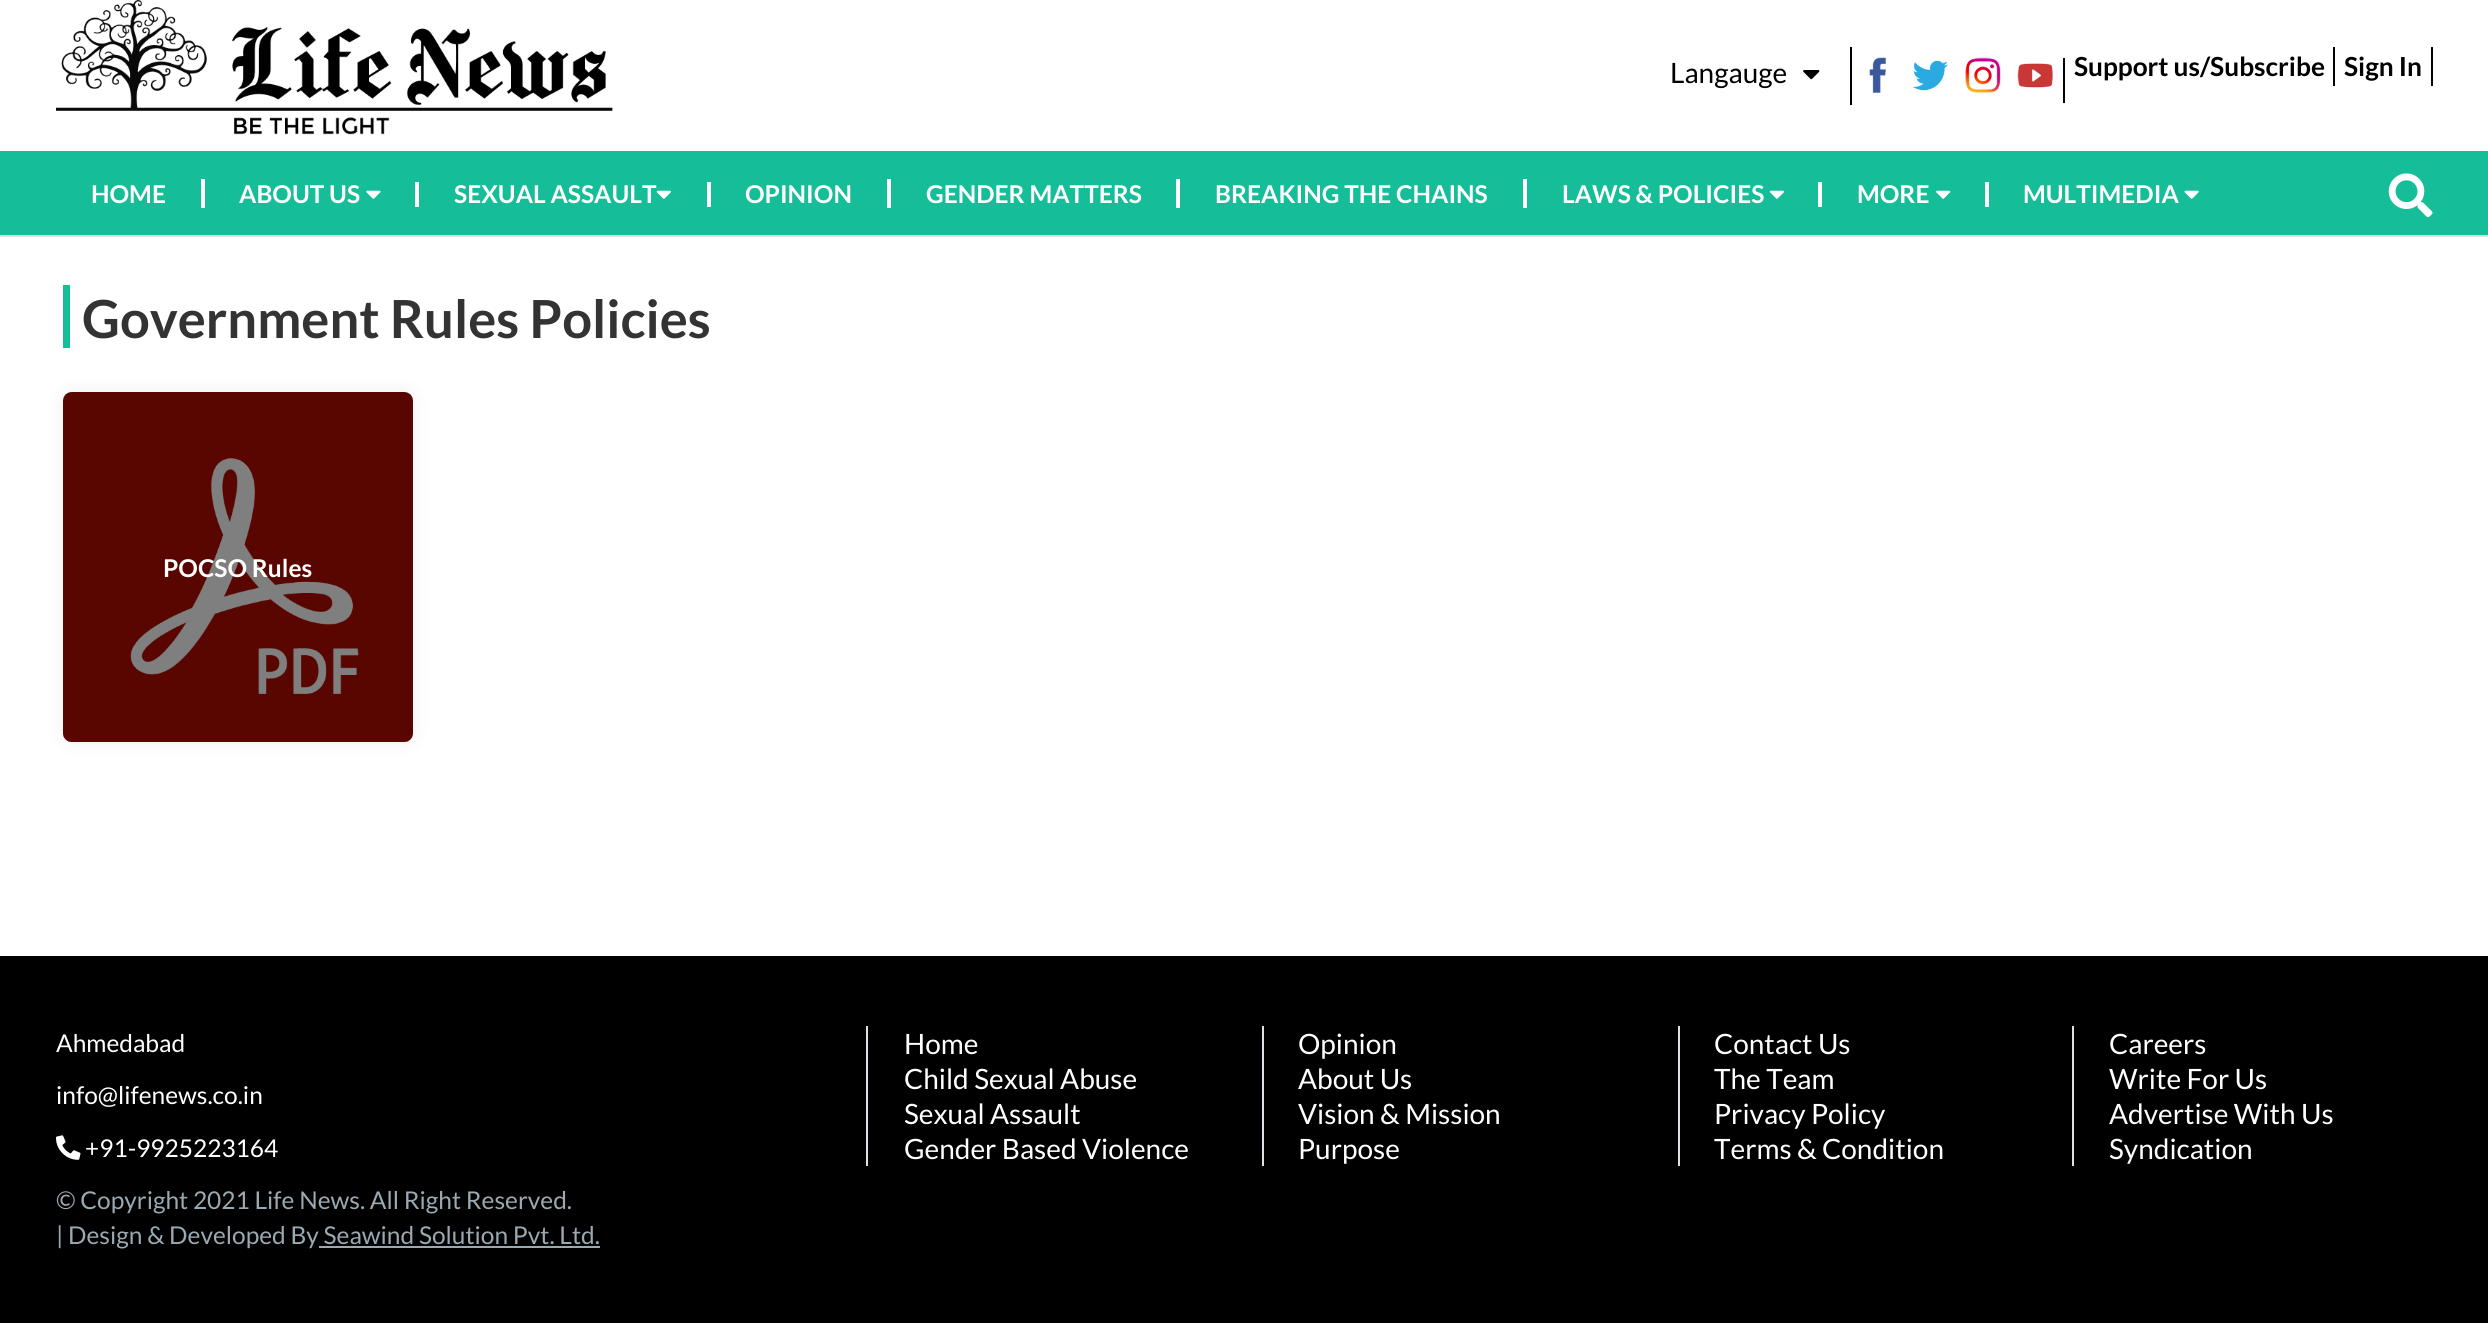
#include <cairo.h>
#include <math.h>
#include <stddef.h>


static void rgb(cairo_t *cr, int r, int g, int b)
{
	cairo_set_source_rgb(cr, r / 255.0, g / 255.0, b / 255.0);
}

static void face(cairo_t *cr, const char *family, double size, int italic, int bold)
{
	cairo_select_font_face(cr, family, italic ? CAIRO_FONT_SLANT_ITALIC : CAIRO_FONT_SLANT_NORMAL,
		bold ? CAIRO_FONT_WEIGHT_BOLD : CAIRO_FONT_WEIGHT_NORMAL);
	cairo_set_font_size(cr, size);
}

static void label(cairo_t *cr, double x, double y, const char *s)
{
	cairo_move_to(cr, x, y);
	cairo_show_text(cr, s);
}

static void rect(cairo_t *cr, double x, double y, double w, double h)
{
	cairo_rectangle(cr, x, y, w, h);
	cairo_fill(cr);
}

static void rrect(cairo_t *cr, double x, double y, double w, double h, double r)
{
	cairo_new_sub_path(cr);
	cairo_arc(cr, x + w - r, y + h - r, r, 0, M_PI / 2);
	cairo_arc(cr, x + r, y + h - r, r, M_PI / 2, M_PI);
	cairo_arc(cr, x + r, y + r, r, M_PI, 1.5 * M_PI);
	cairo_arc(cr, x + w - r, y + r, r, 1.5 * M_PI, 2 * M_PI);
	cairo_close_path(cr);
}

static void soft_shadow(cairo_t *cr, double x, double y, double w, double h, double r, double blur, double alpha)
{
	cairo_push_group_with_content(cr, CAIRO_CONTENT_ALPHA);
	cairo_set_operator(cr, CAIRO_OPERATOR_SOURCE);
	for (int i = 15; i >= -15 && fmin(w, h) + blur * i / 3 > 0; i -= 2) {
		double e = blur * i / 6;
		cairo_set_source_rgba(cr, 0, 0, 0, alpha * erfc((i - 1) / 8.5) / 2);
		rrect(cr, x - e, y - e, w + 2 * e, h + 2 * e, fmax(0, fmin(r + e + blur * .6, fmin(w, h) / 2 + e)));
		cairo_fill(cr);
	}
	cairo_pattern_t *soft = cairo_pop_group(cr);
	cairo_mask(cr, soft);
	cairo_pattern_destroy(soft);
}

static void image(cairo_t *cr, const char *path, double x, double y, double w, double h)
{
	cairo_surface_t *image = cairo_image_surface_create_from_png(path);
	cairo_save(cr);
	cairo_set_source_surface(cr, image, x, y);
	cairo_rectangle(cr, x, y, w, h);
	cairo_fill(cr);
	cairo_restore(cr);
	cairo_surface_destroy(image);
}

static void draw(cairo_t *cr) {
	rgb(cr, 255, 255, 255);
	cairo_paint(cr);
	image(cr, "image0.png", 56, 0, 557, 135);
	rgb(cr, 0, 0, 0);
	rect(cr, 1850, 47, 2, 58);
	face(cr, "Lato", 28, 0, 0);
	label(cr, 1670, 83, "Langauge");
	image(cr, "image1.png", 1803, 70, 17, 10);
	rect(cr, 2063, 58, 2, 45);
	image(cr, "image2.png", 1869, 57, 17, 36);
	image(cr, "image3.png", 1912, 60, 36, 31);
	image(cr, "image4.png", 1965, 57, 36, 36);
	image(cr, "image5.png", 2017, 63, 36, 25);
	rect(cr, 2333, 47, 2, 39);
	face(cr, "Lato", 26.25, 0, 1);
	label(cr, 2074, 76, "Support us/Subscribe");
	rect(cr, 2431, 47, 2, 39);
	label(cr, 2344, 76, "Sign In");
	rgb(cr, 22, 189, 153);
	rect(cr, 0, 151, 2488, 84);
	rgb(cr, 219, 225, 230);
	rect(cr, 0, 235, 2488, 2);
	face(cr, "Lato", 24.5, 0, 1);
	rgb(cr, 255, 255, 255);
	label(cr, 91, 203, "HOME");
	rect(cr, 201, 179, 4, 29);
	rect(cr, 415, 182, 4, 25);
	label(cr, 239, 203, "ABOUT US");
	image(cr, "image6.png", 366, 190, 15, 9);
	rect(cr, 707, 182, 4, 25);
	label(cr, 454, 203, "SEXUAL ASSAULT");
	image(cr, "image7.png", 656, 190, 15, 9);
	label(cr, 745, 203, "OPINION");
	rect(cr, 887, 179, 4, 29);
	label(cr, 926, 203, "GENDER MATTERS");
	rect(cr, 1176, 179, 4, 29);
	label(cr, 1215, 203, "BREAKING THE CHAINS");
	rect(cr, 1523, 179, 4, 29);
	rect(cr, 1818, 182, 4, 25);
	label(cr, 1562, 203, "LAWS & POLICIES");
	image(cr, "image7.png", 1769, 190, 15, 9);
	rect(cr, 1985, 182, 4, 25);
	label(cr, 1857, 203, "MORE");
	image(cr, "image8.png", 1936, 190, 15, 9);
	label(cr, 2023, 203, "MULTIMEDIA");
	image(cr, "image9.png", 2184, 190, 15, 9);
	image(cr, "image10.png", 2388, 173, 45, 45);
	rgb(cr, 23, 189, 153);
	rect(cr, 63, 285, 7, 63);
	face(cr, "Lato", 52.5, 0, 1);
	rgb(cr, 51, 51, 51);
	label(cr, 82, 338, "Government Rules Policies");
	rgb(cr, 238, 238, 238);
	soft_shadow(cr, 63, 392, 350, 350, 9, 8, 1);
	image(cr, "image11.png", 63, 392, 350, 350);
	cairo_set_source_rgba(cr, 0, 0, 0, 0.5);
	rrect(cr, 63, 392, 350, 350, 9);
	cairo_fill(cr);
	face(cr, "Lato", 24.5, 0, 1);
	rgb(cr, 255, 255, 255);
	label(cr, 163, 577, "POCSO Rules");
	rgb(cr, 0, 0, 0);
	rect(cr, 0, 956, 2488, 367);
	face(cr, "Lato", 24.5, 0, 0);
	rgb(cr, 255, 255, 255);
	label(cr, 56, 1052, "Ahmedabad");
	label(cr, 56, 1104, "info@lifenews.co.in");
	image(cr, "image12.png", 56, 1135, 25, 25);
	label(cr, 85, 1157, "+91-9925223164");
	rgb(cr, 155, 169, 178);
	label(cr, 56, 1209, "© Copyright 2021 Life News. All Right Reserved.");
	label(cr, 56, 1244, "| Design & Developed By Seawind Solution Pvt. Ltd.");
	rect(cr, 319, 1246, 281, 2);
	rgb(cr, 219, 225, 230);
	rect(cr, 866, 1026, 2, 140);
	face(cr, "Lato", 28, 0, 0);
	rgb(cr, 255, 255, 255);
	label(cr, 904, 1054, "Home");
	rgb(cr, 219, 225, 230);
	rect(cr, 1262, 1026, 2, 140);
	rgb(cr, 255, 255, 255);
	label(cr, 1298, 1054, "Opinion");
	label(cr, 904, 1089, "Child Sexual Abuse");
	label(cr, 1298, 1089, "About Us");
	label(cr, 904, 1124, "Sexual Assault");
	label(cr, 1298, 1124, "Vision & Mission");
	label(cr, 904, 1159, "Gender Based Violence");
	label(cr, 1298, 1159, "Purpose");
	rgb(cr, 219, 225, 230);
	rect(cr, 1678, 1026, 2, 140);
	rgb(cr, 255, 255, 255);
	label(cr, 1714, 1054, "Contact Us");
	rgb(cr, 219, 225, 230);
	rect(cr, 2072, 1026, 2, 140);
	rgb(cr, 255, 255, 255);
	label(cr, 2109, 1054, "Careers");
	label(cr, 1714, 1089, "The Team");
	label(cr, 2109, 1089, "Write For Us");
	label(cr, 1714, 1124, "Privacy Policy");
	label(cr, 2109, 1124, "Advertise With Us");
	label(cr, 1714, 1159, "Terms & Condition");
	label(cr, 2109, 1159, "Syndication");
}

int main(void) {
	cairo_surface_t *surface = cairo_image_surface_create(CAIRO_FORMAT_RGB24, 2488, 1323);
	cairo_t *cr = cairo_create(surface);
	cairo_font_options_t *options = cairo_font_options_create();
	cairo_font_options_set_hint_metrics(options, CAIRO_HINT_METRICS_OFF);
	cairo_font_options_set_hint_style(options, CAIRO_HINT_STYLE_NONE);
	cairo_set_font_options(cr, options);
	cairo_set_miter_limit(cr, 4);
	draw(cr);
	cairo_surface_write_to_png(surface, "render.png");
	cairo_font_options_destroy(options);
	cairo_destroy(cr);
	cairo_surface_destroy(surface);
	return 0;
}
